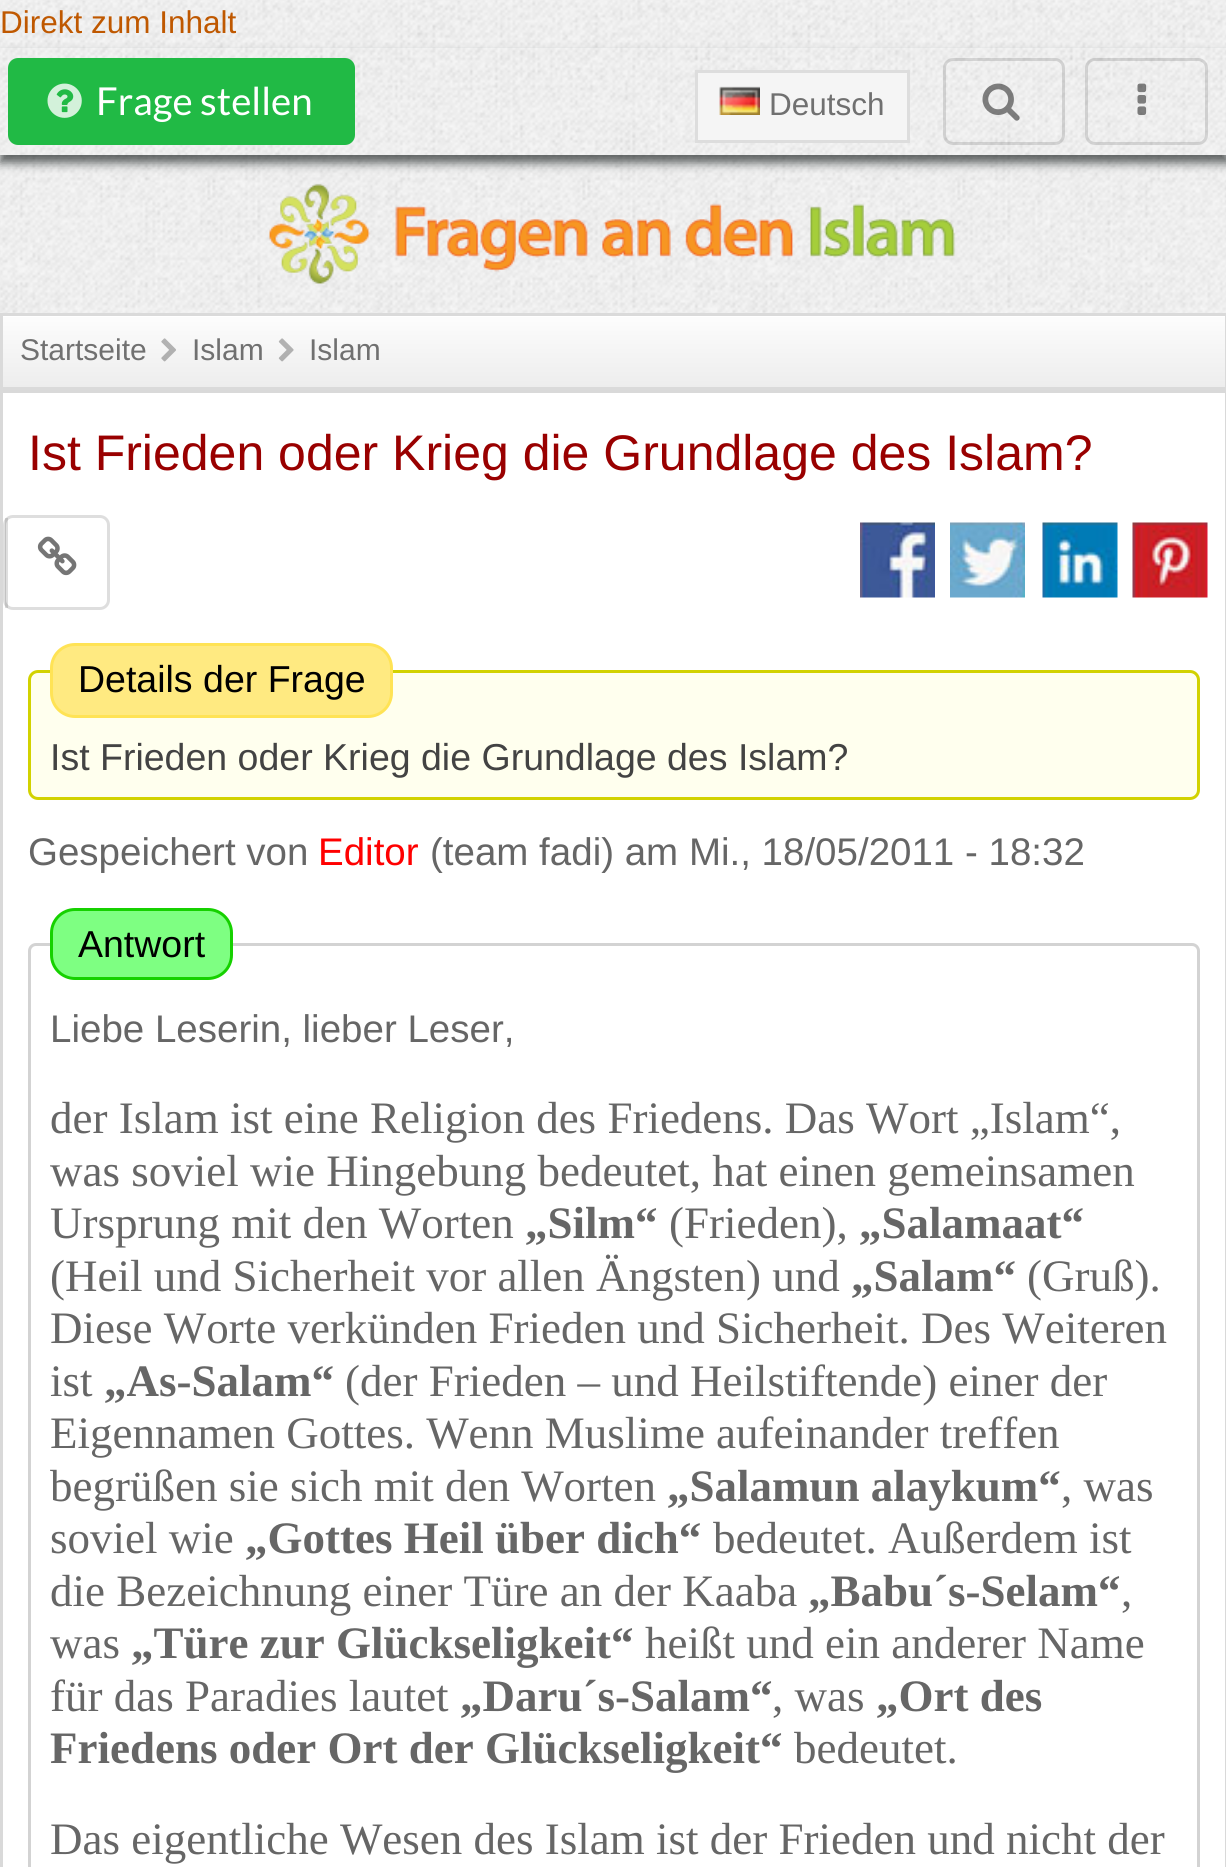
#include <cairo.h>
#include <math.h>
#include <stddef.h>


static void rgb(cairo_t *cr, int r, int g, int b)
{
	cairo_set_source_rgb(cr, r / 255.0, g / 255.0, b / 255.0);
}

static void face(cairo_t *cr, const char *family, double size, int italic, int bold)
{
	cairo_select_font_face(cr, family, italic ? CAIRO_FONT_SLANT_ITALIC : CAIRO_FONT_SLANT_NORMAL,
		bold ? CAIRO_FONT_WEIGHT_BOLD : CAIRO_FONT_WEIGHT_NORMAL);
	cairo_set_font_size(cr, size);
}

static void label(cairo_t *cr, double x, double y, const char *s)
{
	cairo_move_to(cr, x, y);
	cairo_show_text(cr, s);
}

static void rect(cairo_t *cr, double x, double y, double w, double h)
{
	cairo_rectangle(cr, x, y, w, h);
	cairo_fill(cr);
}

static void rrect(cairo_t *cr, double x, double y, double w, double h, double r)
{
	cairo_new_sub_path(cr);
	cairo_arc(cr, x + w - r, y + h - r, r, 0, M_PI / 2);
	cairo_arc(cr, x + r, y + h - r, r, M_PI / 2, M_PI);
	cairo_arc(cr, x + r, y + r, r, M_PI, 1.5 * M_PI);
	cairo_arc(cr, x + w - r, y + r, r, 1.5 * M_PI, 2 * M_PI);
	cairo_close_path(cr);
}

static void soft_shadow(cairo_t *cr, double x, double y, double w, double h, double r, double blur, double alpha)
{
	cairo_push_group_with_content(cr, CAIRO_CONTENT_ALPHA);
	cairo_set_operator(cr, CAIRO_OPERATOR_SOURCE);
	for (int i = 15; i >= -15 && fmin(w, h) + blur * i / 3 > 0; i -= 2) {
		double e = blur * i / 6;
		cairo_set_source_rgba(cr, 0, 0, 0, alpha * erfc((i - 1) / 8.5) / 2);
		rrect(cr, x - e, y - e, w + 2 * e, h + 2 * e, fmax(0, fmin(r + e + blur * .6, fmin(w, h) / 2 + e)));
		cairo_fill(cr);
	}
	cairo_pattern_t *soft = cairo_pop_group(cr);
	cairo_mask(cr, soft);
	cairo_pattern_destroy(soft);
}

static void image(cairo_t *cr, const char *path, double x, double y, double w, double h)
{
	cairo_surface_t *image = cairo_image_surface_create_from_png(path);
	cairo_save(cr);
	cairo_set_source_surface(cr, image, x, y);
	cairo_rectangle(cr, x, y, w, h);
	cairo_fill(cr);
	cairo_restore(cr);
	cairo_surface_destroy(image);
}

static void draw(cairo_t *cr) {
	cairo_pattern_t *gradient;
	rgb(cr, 255, 255, 255);
	cairo_paint(cr);
	image(cr, "image0.png", 0, 0, 1226, 313);
	face(cr, "Liberation Sans", 31.5, 0, 0);
	rgb(cr, 191, 88, 0);
	label(cr, 0, 33, "Direkt zum Inhalt");
	cairo_save(cr);
	cairo_set_fill_rule(cr, CAIRO_FILL_RULE_EVEN_ODD);
	cairo_new_path(cr);
	cairo_move_to(cr, 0, 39);
	cairo_line_to(cr, 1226, 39);
	cairo_line_to(cr, 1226, 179);
	cairo_line_to(cr, 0, 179);
	cairo_close_path(cr);
	cairo_move_to(cr, 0, 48);
	cairo_line_to(cr, 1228, 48);
	cairo_line_to(cr, 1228, 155);
	cairo_line_to(cr, 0, 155);
	cairo_close_path(cr);
	cairo_clip(cr);
	rgb(cr, 45, 50, 50);
	soft_shadow(cr, 0, 55, 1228, 108, 0, 5, 0.75);
	cairo_restore(cr);
	rgb(cr, 33, 186, 69);
	rrect(cr, 8, 58, 347, 87, 10);
	cairo_fill(cr);
	image(cr, "image1.png", 47, 83, 35, 35);
	face(cr, "Lato", 38.5, 0, 0);
	rgb(cr, 255, 255, 255);
	label(cr, 96, 115, "Frage stellen");
	rgb(cr, 245, 245, 245);
	cairo_rectangle(cr, 696.5, 71.5, 212, 70);
	cairo_fill_preserve(cr);
	rgb(cr, 221, 221, 221);
	cairo_set_line_width(cr, 3);
	cairo_stroke(cr);
	image(cr, "image2.png", 719, 86, 41, 29);
	face(cr, "Liberation Sans", 31.5, 0, 0);
	rgb(cr, 112, 112, 112);
	label(cr, 769, 115, "Deutsch");
	rrect(cr, 944.5, 59.5, 119, 84, 8.5);
	cairo_set_source_rgba(cr, 0.133, 0.141, 0.149, 0.15);
	cairo_stroke(cr);
	image(cr, "image3.png", 982, 83, 38, 38);
	rrect(cr, 1086.5, 59.5, 120, 84, 8.5);
	cairo_stroke(cr);
	image(cr, "image4.png", 1137, 83, 10, 32);
	image(cr, "image5.png", 269, 183, 687, 101);
	gradient = cairo_pattern_create_linear(614, 315, 614, 388);
	cairo_pattern_add_color_stop_rgba(gradient, 0, 0.992, 0.992, 0.992, 1);
	cairo_pattern_add_color_stop_rgba(gradient, 1, 0.929, 0.929, 0.929, 1);
	cairo_set_source(cr, gradient);
	cairo_pattern_destroy(gradient);
	rect(cr, 3, 317, 1222, 70);
	cairo_rectangle(cr, 1.5, 314.5, 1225, 74);
	rgb(cr, 218, 218, 218);
	cairo_stroke(cr);
	face(cr, "Liberation Sans", 30, 0, 0);
	rgb(cr, 112, 112, 112);
	label(cr, 20, 360, "Startseite");
	image(cr, "image6.png", 161, 338, 15, 24);
	label(cr, 192, 360, "Islam");
	image(cr, "image7.png", 278, 338, 16, 24);
	label(cr, 309, 360, "Islam");
	cairo_rectangle(cr, 1.5, 391.5, 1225, 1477);
	rgb(cr, 217, 217, 217);
	cairo_stroke(cr);
	face(cr, "Liberation Sans", 50, 0, 0);
	rgb(cr, 153, 0, 0);
	label(cr, 28, 470, "Ist Frieden oder Krieg die Grundlage des Islam?");
	rrect(cr, 4.5, 516.5, 104, 92, 8.5);
	rgb(cr, 222, 222, 222);
	cairo_stroke(cr);
	cairo_set_source_rgba(cr, 0.133, 0.141, 0.149, 0.15);
	rect(cr, 5, 518, 3, 90);
	image(cr, "image8.png", 37, 536, 40, 40);
	image(cr, "image9.png", 860, 522, 75, 76);
	image(cr, "image10.png", 950, 522, 75, 76);
	image(cr, "image11.png", 1042, 522, 76, 76);
	image(cr, "image12.png", 1132, 522, 76, 76);
	rgb(cr, 255, 255, 238);
	rrect(cr, 29.5, 671.5, 1169, 127, 8.5);
	cairo_fill_preserve(cr);
	rgb(cr, 210, 210, 0);
	cairo_stroke(cr);
	rgb(cr, 255, 234, 129);
	rrect(cr, 51.5, 644.5, 340, 72, 23.5);
	cairo_fill_preserve(cr);
	rgb(cr, 255, 227, 85);
	cairo_stroke(cr);
	face(cr, "Liberation Sans", 37.5, 0, 0);
	rgb(cr, 0, 0, 0);
	label(cr, 78, 692, "Details der Frage");
	rgb(cr, 67, 67, 67);
	label(cr, 50, 770, "Ist Frieden oder Krieg die Grundlage des Islam?");
	face(cr, "Liberation Sans", 38.5, 0, 0);
	rgb(cr, 102, 102, 102);
	label(cr, 28, 865, "Gespeichert von");
	rgb(cr, 255, 0, 0);
	label(cr, 318, 865, "Editor");
	rgb(cr, 102, 102, 102);
	label(cr, 430, 865, "(team fadi) am Mi., 18/05/2011 - 18:32");
	rrect(cr, 29.5, 944.5, 1169, 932, 6.5);
	rgb(cr, 211, 211, 211);
	cairo_stroke(cr);
	rgb(cr, 126, 255, 130);
	rrect(cr, 51.5, 909.5, 180, 69, 23.5);
	cairo_fill_preserve(cr);
	rgb(cr, 22, 209, 0);
	cairo_stroke(cr);
	face(cr, "Liberation Sans", 37.5, 0, 0);
	rgb(cr, 0, 0, 0);
	label(cr, 78, 957, "Antwort");
	face(cr, "Liberation Sans", 38.5, 0, 0);
	rgb(cr, 102, 102, 102);
	label(cr, 50, 1042, "Liebe Leserin, lieber Leser,");
	face(cr, "Liberation Serif", 45, 0, 0);
	label(cr, 50, 1133, "der Islam ist eine Religion des Friedens. Das Wort „Islam“,");
	label(cr, 50, 1186, "was soviel wie Hingebung bedeutet, hat einen gemeinsamen");
	label(cr, 50, 1238, "Ursprung mit den Worten");
	face(cr, "Liberation Serif", 45, 0, 1);
	label(cr, 525, 1238, "„Silm“");
	face(cr, "Liberation Serif", 45, 0, 0);
	label(cr, 669, 1238, "(Frieden),");
	face(cr, "Liberation Serif", 45, 0, 1);
	label(cr, 859, 1238, "„Salamaat“");
	face(cr, "Liberation Serif", 45, 0, 0);
	label(cr, 50, 1291, "(Heil und Sicherheit vor allen Ängsten) und");
	face(cr, "Liberation Serif", 45, 0, 1);
	label(cr, 851, 1291, "„Salam“");
	face(cr, "Liberation Serif", 45, 0, 0);
	label(cr, 1027, 1291, "(Gruß).");
	label(cr, 50, 1343, "Diese Worte verkünden Frieden und Sicherheit. Des Weiteren");
	label(cr, 50, 1396, "ist");
	face(cr, "Liberation Serif", 45, 0, 1);
	label(cr, 104, 1396, "„As-Salam“");
	face(cr, "Liberation Serif", 45, 0, 0);
	label(cr, 345, 1396, "(der Frieden – und Heilstiftende) einer der");
	label(cr, 50, 1448, "Eigennamen Gottes. Wenn Muslime aufeinander treffen");
	label(cr, 50, 1501, "begrüßen sie sich mit den Worten");
	face(cr, "Liberation Serif", 45, 0, 1);
	label(cr, 667, 1501, "„Salamun alaykum“");
	face(cr, "Liberation Serif", 45, 0, 0);
	label(cr, 1061, 1501, ", was");
	label(cr, 50, 1553, "soviel wie");
	face(cr, "Liberation Serif", 45, 0, 1);
	label(cr, 245, 1553, "„Gottes Heil über dich“");
	face(cr, "Liberation Serif", 45, 0, 0);
	label(cr, 713, 1553, "bedeutet. Außerdem ist");
	label(cr, 50, 1606, "die Bezeichnung einer Türe an der Kaaba");
	face(cr, "Liberation Serif", 45, 0, 1);
	label(cr, 808, 1606, "„Babu´s-Selam“");
	face(cr, "Liberation Serif", 45, 0, 0);
	label(cr, 1121, 1606, ",");
	label(cr, 50, 1658, "was");
	face(cr, "Liberation Serif", 45, 0, 1);
	label(cr, 131, 1658, "„Türe zur Glückseligkeit“");
	face(cr, "Liberation Serif", 45, 0, 0);
	label(cr, 645, 1658, "heißt und ein anderer Name");
	label(cr, 50, 1711, "für das Paradies lautet");
	face(cr, "Liberation Serif", 45, 0, 1);
	label(cr, 460, 1711, "„Daru´s-Salam“");
	face(cr, "Liberation Serif", 45, 0, 0);
	label(cr, 772, 1711, ", was");
	face(cr, "Liberation Serif", 45, 0, 1);
	label(cr, 876, 1711, "„Ort des");
	label(cr, 50, 1763, "Friedens oder Ort der Glückseligkeit“");
	face(cr, "Liberation Serif", 45, 0, 0);
	label(cr, 794, 1763, "bedeutet.");
	label(cr, 50, 1854, "Das eigentliche Wesen des Islam ist der Frieden und nicht der");
}

int main(void) {
	cairo_surface_t *surface = cairo_image_surface_create(CAIRO_FORMAT_RGB24, 1226, 1867);
	cairo_t *cr = cairo_create(surface);
	cairo_font_options_t *options = cairo_font_options_create();
	cairo_font_options_set_hint_metrics(options, CAIRO_HINT_METRICS_OFF);
	cairo_font_options_set_hint_style(options, CAIRO_HINT_STYLE_NONE);
	cairo_set_font_options(cr, options);
	cairo_set_miter_limit(cr, 4);
	draw(cr);
	cairo_surface_write_to_png(surface, "render.png");
	cairo_font_options_destroy(options);
	cairo_destroy(cr);
	cairo_surface_destroy(surface);
	return 0;
}
